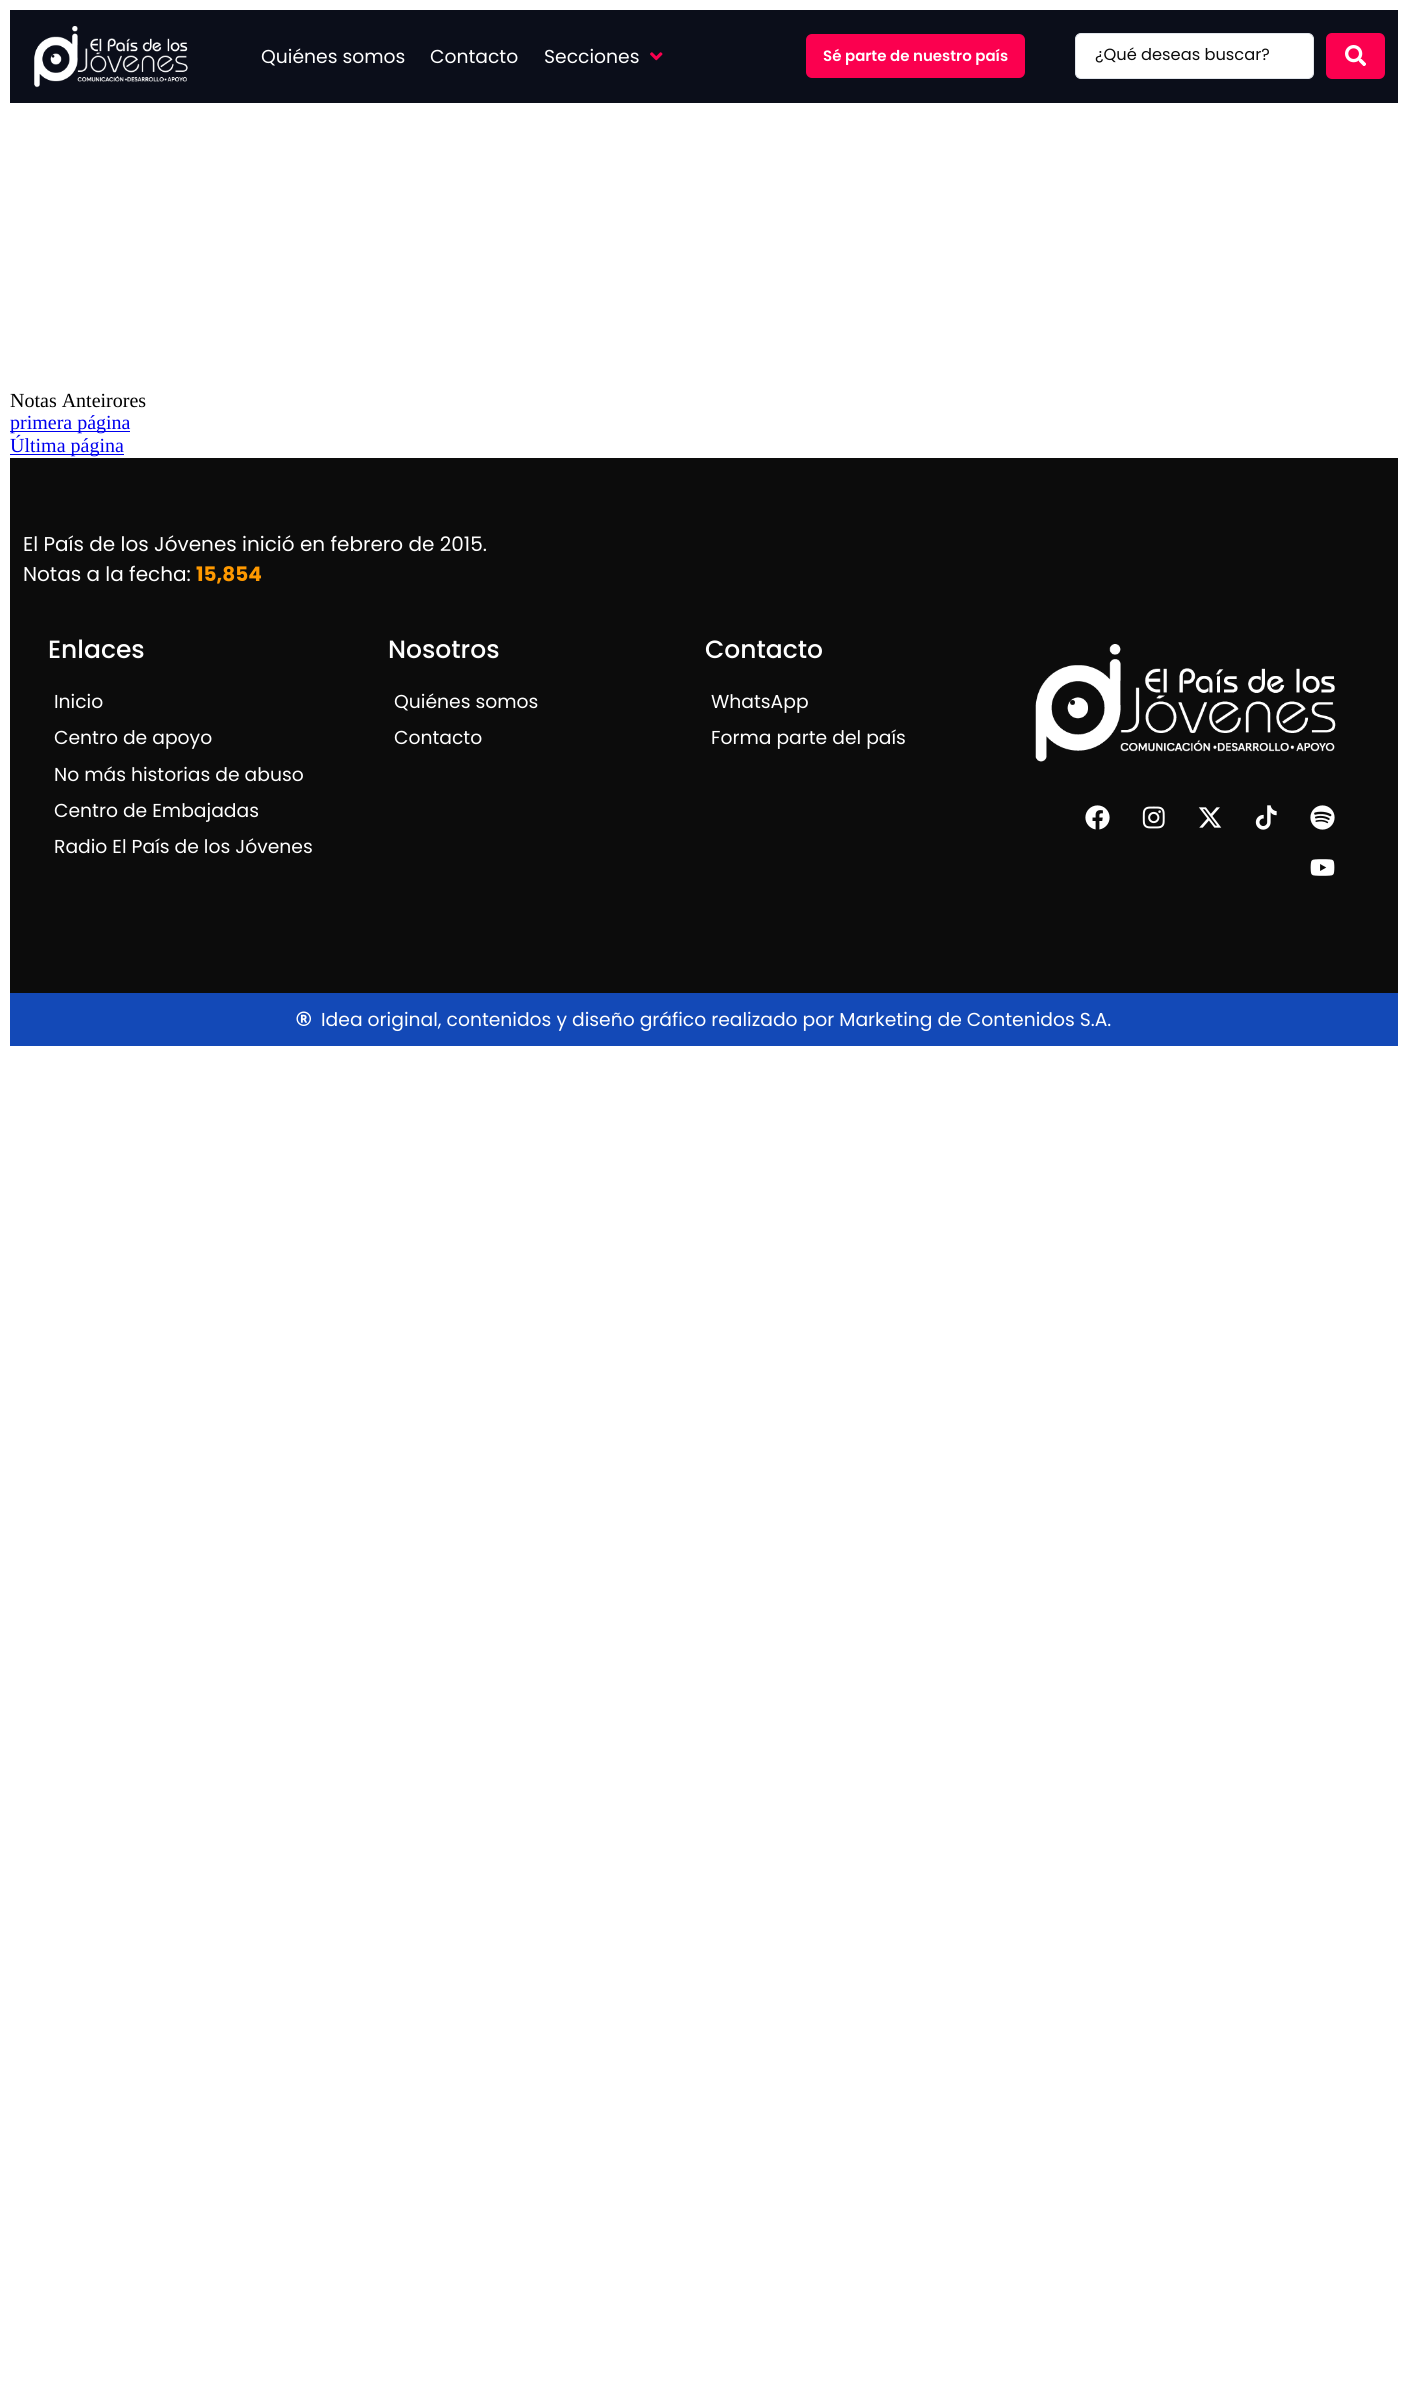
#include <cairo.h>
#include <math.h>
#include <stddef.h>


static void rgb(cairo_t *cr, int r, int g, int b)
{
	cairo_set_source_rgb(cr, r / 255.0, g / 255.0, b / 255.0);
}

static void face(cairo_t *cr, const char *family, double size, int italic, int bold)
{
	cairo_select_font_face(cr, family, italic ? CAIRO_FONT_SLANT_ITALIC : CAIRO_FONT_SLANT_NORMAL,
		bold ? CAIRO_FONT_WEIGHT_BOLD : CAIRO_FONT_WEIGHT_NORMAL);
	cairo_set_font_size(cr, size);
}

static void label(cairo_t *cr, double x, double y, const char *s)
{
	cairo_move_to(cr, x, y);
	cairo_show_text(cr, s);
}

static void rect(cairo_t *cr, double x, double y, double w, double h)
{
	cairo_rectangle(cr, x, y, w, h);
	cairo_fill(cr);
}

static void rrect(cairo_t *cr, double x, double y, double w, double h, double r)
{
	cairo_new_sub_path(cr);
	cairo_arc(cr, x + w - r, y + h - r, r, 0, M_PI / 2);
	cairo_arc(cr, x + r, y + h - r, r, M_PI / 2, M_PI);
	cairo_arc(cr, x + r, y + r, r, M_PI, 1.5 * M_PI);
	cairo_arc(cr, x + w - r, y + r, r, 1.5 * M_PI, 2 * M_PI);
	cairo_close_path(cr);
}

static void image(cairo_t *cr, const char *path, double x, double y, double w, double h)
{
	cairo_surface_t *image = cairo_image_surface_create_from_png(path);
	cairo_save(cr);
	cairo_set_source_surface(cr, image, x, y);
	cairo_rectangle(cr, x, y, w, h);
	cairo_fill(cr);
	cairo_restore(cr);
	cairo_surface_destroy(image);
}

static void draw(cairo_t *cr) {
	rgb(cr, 255, 255, 255);
	cairo_paint(cr);
	rgb(cr, 11, 14, 26);
	rect(cr, 10, 10, 1388, 93);
	image(cr, "image0.png", 34, 26, 154, 62);
	face(cr, "Poppins", 18.75, 0, 0);
	rgb(cr, 255, 255, 255);
	label(cr, 261, 63, "Quiénes somos");
	label(cr, 430, 63, "Contacto");
	label(cr, 544, 63, "Secciones");
	image(cr, "image1.png", 650, 52, 13, 9);
	rgb(cr, 251, 0, 79);
	rrect(cr, 806, 34, 219, 44, 6);
	cairo_fill(cr);
	face(cr, "Poppins SemiBold", 15, 0, 0);
	rgb(cr, 255, 255, 255);
	label(cr, 823, 61, "Sé parte de nuestro país");
	rrect(cr, 1075.5, 33.5, 238, 45, 5.5);
	cairo_fill_preserve(cr);
	rgb(cr, 225, 229, 235);
	cairo_set_line_width(cr, 1);
	cairo_stroke(cr);
	face(cr, "Poppins", 16.25, 0, 0);
	rgb(cr, 12, 12, 12);
	label(cr, 1095, 60, "¿Qué deseas buscar?");
	rgb(cr, 251, 0, 79);
	rrect(cr, 1326, 33, 59, 46, 6);
	cairo_fill(cr);
	image(cr, "image2.png", 1345, 45, 21, 21);
	face(cr, "Liberation Serif", 20, 0, 0);
	rgb(cr, 0, 0, 0);
	label(cr, 10, 407, "Notas Anteirores");
	rgb(cr, 0, 0, 238);
	rect(cr, 10, 431, 120, 1);
	label(cr, 10, 429, "primera página");
	rect(cr, 10, 454, 114, 1);
	label(cr, 10, 452, "Última página");
	rgb(cr, 12, 12, 12);
	rect(cr, 10, 458, 1388, 535);
	face(cr, "Poppins", 20, 0, 0);
	rgb(cr, 255, 255, 255);
	label(cr, 23, 551, "El País de los Jóvenes inició en febrero de 2015.");
	label(cr, 23, 581, "Notas a la fecha:");
	face(cr, "Poppins", 20, 0, 1);
	rgb(cr, 255, 153, 0);
	label(cr, 196, 581, "15,854");
	face(cr, "Poppins Medium", 25, 0, 0);
	rgb(cr, 255, 255, 255);
	label(cr, 48, 658, "Enlaces");
	face(cr, "Poppins", 18.75, 0, 0);
	label(cr, 54, 708, "Inicio");
	label(cr, 54, 744, "Centro de apoyo");
	label(cr, 54, 781, "No más historias de abuso");
	label(cr, 54, 817, "Centro de Embajadas");
	label(cr, 54, 853, "Radio El País de los Jóvenes");
	face(cr, "Poppins Medium", 25, 0, 0);
	label(cr, 388, 658, "Nosotros");
	face(cr, "Poppins", 18.75, 0, 0);
	label(cr, 394, 708, "Quiénes somos");
	label(cr, 394, 744, "Contacto");
	face(cr, "Poppins Medium", 25, 0, 0);
	label(cr, 705, 658, "Contacto");
	face(cr, "Poppins", 18.75, 0, 0);
	label(cr, 711, 708, "WhatsApp");
	label(cr, 711, 744, "Forma parte del país");
	image(cr, "image3.png", 1035, 644, 301, 118);
	image(cr, "image4.png", 1085, 805, 25, 25);
	image(cr, "image5.png", 1142, 806, 23, 23);
	image(cr, "image6.png", 1198, 807, 24, 21);
	image(cr, "image7.png", 1255, 805, 22, 25);
	image(cr, "image8.png", 1310, 805, 25, 25);
	image(cr, "image9.png", 1310, 859, 25, 17);
	rgb(cr, 19, 73, 183);
	rect(cr, 10, 993, 1388, 53);
	image(cr, "image10.png", 296, 1011, 15, 15);
	rgb(cr, 255, 255, 255);
	label(cr, 321, 1026, "Idea original, contenidos y diseño gráfico realizado por Marketing de Contenidos S.A.");
}

int main(void) {
	cairo_surface_t *surface = cairo_image_surface_create(CAIRO_FORMAT_RGB24, 1407, 2385);
	cairo_t *cr = cairo_create(surface);
	cairo_font_options_t *options = cairo_font_options_create();
	cairo_font_options_set_hint_metrics(options, CAIRO_HINT_METRICS_OFF);
	cairo_font_options_set_hint_style(options, CAIRO_HINT_STYLE_NONE);
	cairo_set_font_options(cr, options);
	cairo_set_miter_limit(cr, 4);
	draw(cr);
	cairo_surface_write_to_png(surface, "render.png");
	cairo_font_options_destroy(options);
	cairo_destroy(cr);
	cairo_surface_destroy(surface);
	return 0;
}
